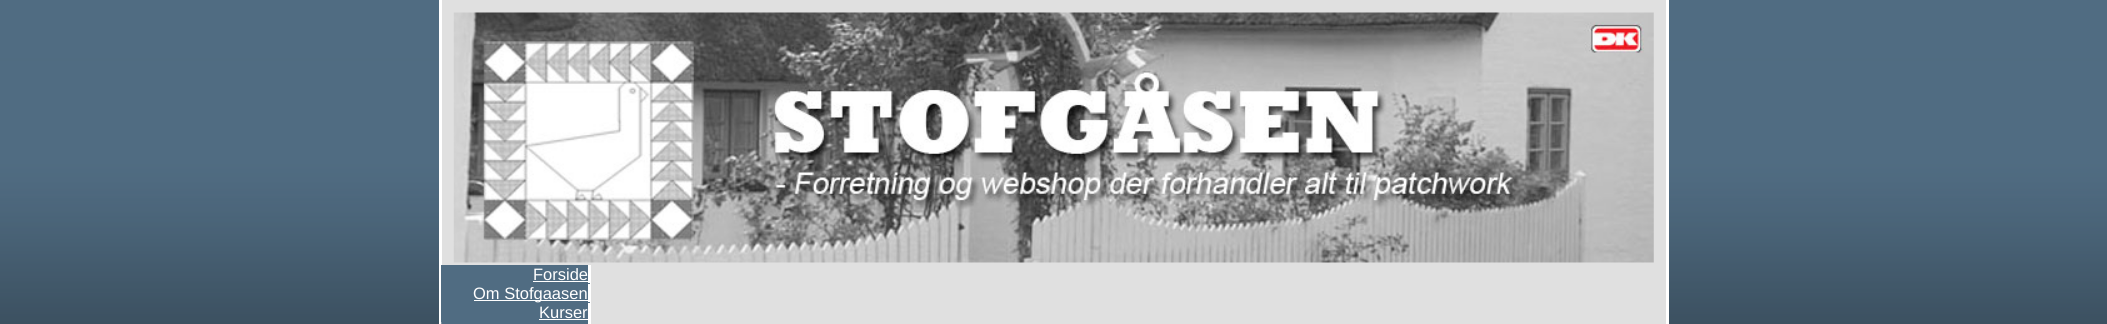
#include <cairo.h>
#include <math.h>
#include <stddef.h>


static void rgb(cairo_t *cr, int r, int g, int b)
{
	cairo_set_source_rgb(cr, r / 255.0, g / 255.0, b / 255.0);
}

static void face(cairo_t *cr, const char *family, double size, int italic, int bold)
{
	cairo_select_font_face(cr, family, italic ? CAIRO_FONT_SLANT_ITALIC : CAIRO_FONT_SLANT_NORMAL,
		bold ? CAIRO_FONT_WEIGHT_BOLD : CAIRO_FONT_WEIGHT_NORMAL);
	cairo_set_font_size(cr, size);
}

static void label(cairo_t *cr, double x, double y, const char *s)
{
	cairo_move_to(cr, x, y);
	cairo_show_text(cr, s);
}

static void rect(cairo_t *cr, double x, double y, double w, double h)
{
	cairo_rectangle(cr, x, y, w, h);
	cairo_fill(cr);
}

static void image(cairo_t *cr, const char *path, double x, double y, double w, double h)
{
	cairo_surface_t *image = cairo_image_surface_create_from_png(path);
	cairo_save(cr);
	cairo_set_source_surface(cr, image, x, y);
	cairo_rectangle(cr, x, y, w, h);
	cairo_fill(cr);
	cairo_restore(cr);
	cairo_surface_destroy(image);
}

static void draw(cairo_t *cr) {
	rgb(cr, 255, 255, 255);
	cairo_paint(cr);
	image(cr, "image0.png", 0, 0, 2107, 324);
	rgb(cr, 224, 224, 224);
	rect(cr, 442, 0, 1224, 324);
	rgb(cr, 255, 255, 255);
	rect(cr, 1666, 0, 3, 324);
	rect(cr, 439, 0, 3, 324);
	image(cr, "image1.png", 453, 12, 1201, 251);
	rgb(cr, 80, 108, 130);
	rect(cr, 441, 265, 147, 18);
	rgb(cr, 255, 255, 255);
	rect(cr, 588, 265, 3, 19);
	face(cr, "Liberation Sans", 16.5, 0, 0);
	label(cr, 533, 280, "Forside");
	rect(cr, 533, 281, 55, 1);
	rgb(cr, 80, 108, 130);
	rect(cr, 441, 283, 149, 19);
	rgb(cr, 255, 255, 255);
	rect(cr, 588, 284, 3, 19);
	rect(cr, 474, 300, 114, 1);
	rgb(cr, 80, 108, 130);
	rect(cr, 441, 302, 149, 20);
	rgb(cr, 255, 255, 255);
	label(cr, 473, 299, "Om Stofgaasen");
	rect(cr, 588, 303, 3, 21);
	label(cr, 539, 318, "Kurser");
	rect(cr, 539, 319, 49, 1);
	image(cr, "image2.png", 441, 322, 147, 2);
}

int main(void) {
	cairo_surface_t *surface = cairo_image_surface_create(CAIRO_FORMAT_RGB24, 2107, 324);
	cairo_t *cr = cairo_create(surface);
	cairo_font_options_t *options = cairo_font_options_create();
	cairo_font_options_set_hint_metrics(options, CAIRO_HINT_METRICS_OFF);
	cairo_font_options_set_hint_style(options, CAIRO_HINT_STYLE_NONE);
	cairo_set_font_options(cr, options);
	cairo_set_miter_limit(cr, 4);
	draw(cr);
	cairo_surface_write_to_png(surface, "render.png");
	cairo_font_options_destroy(options);
	cairo_destroy(cr);
	cairo_surface_destroy(surface);
	return 0;
}
